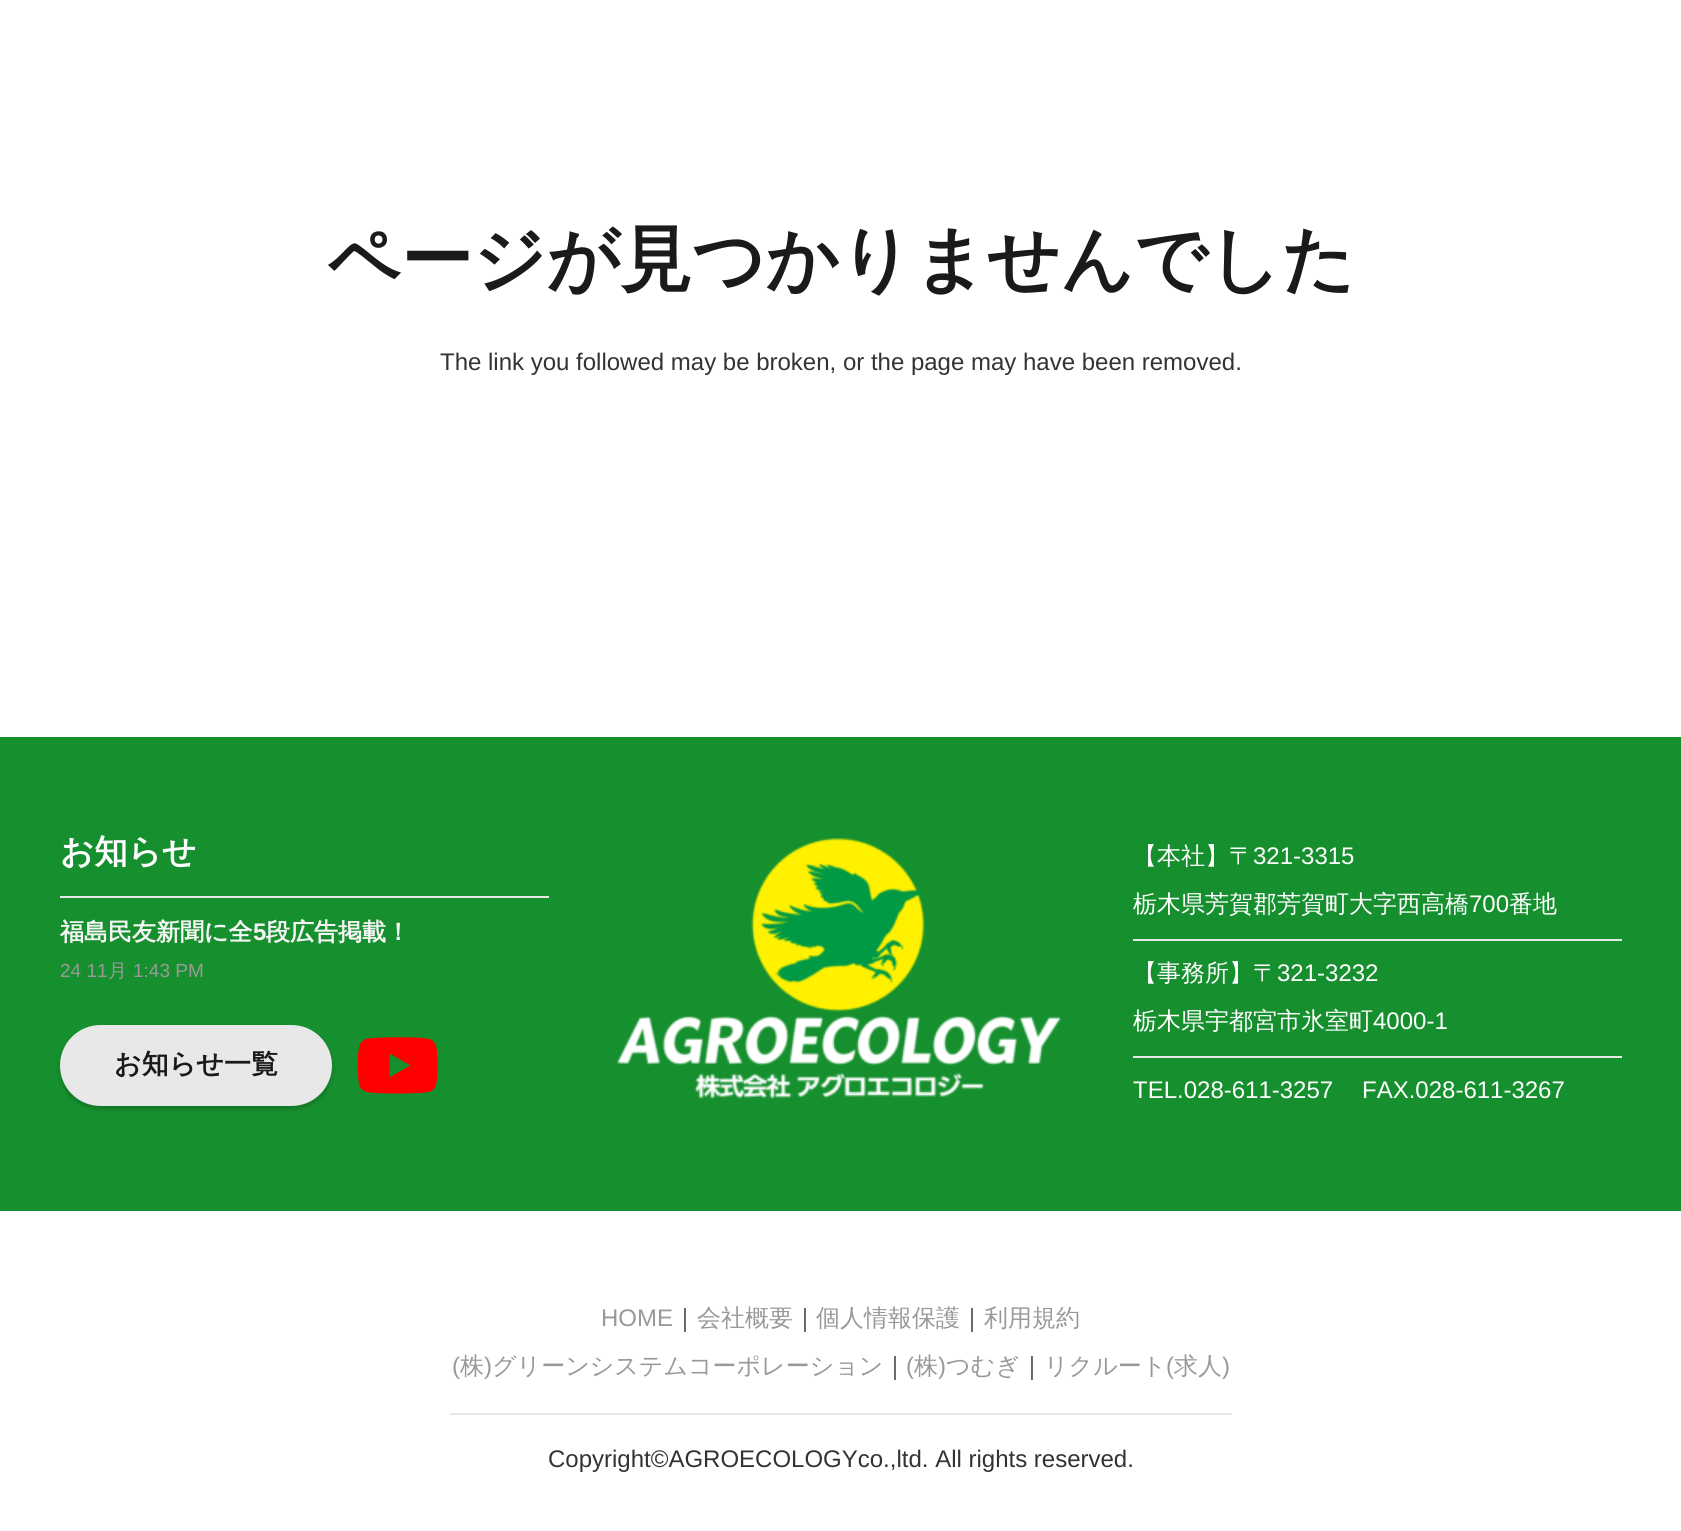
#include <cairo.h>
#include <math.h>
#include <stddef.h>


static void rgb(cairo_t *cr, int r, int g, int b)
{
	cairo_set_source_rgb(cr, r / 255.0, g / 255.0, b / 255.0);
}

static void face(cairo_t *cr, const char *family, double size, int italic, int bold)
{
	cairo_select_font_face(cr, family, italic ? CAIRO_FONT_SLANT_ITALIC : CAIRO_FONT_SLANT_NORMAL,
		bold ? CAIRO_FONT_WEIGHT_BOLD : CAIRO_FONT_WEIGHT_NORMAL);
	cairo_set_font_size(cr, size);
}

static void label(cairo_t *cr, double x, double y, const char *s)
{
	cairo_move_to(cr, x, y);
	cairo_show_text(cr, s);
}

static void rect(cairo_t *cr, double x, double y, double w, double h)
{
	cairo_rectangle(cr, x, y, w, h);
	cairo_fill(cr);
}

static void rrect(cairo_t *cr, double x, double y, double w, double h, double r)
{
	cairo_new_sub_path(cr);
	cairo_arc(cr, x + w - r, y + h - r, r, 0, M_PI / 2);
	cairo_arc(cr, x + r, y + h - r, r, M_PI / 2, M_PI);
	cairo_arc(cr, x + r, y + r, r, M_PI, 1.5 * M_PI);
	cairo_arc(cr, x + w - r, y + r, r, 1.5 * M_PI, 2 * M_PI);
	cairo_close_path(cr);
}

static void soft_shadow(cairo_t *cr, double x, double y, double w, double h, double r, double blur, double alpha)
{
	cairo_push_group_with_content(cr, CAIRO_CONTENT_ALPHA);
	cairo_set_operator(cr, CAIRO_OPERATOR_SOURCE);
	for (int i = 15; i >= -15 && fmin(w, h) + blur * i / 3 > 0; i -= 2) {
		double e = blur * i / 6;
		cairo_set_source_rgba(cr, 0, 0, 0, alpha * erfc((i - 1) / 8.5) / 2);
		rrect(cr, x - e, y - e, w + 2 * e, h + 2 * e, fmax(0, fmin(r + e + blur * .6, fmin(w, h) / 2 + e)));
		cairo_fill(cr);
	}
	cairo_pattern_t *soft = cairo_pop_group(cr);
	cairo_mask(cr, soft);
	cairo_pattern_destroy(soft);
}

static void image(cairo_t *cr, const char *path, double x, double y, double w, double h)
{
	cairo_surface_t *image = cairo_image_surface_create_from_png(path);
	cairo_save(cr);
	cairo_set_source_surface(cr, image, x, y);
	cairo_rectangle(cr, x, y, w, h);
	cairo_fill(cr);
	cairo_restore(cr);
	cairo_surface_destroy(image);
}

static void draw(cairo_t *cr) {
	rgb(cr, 255, 255, 255);
	cairo_paint(cr);
	face(cr, "WenQuanYi Zen Hei", 72, 0, 1);
	rgb(cr, 26, 26, 26);
	label(cr, 327, 284, "ページが見つかりませんでした");
	face(cr, "Liberation Sans", 24, 0, 0);
	rgb(cr, 51, 51, 51);
	label(cr, 440, 370, "The link you followed may be broken, or the page may have been removed.");
	rgb(cr, 22, 144, 46);
	rect(cr, 0, 737, 1681, 474);
	face(cr, "WenQuanYi Zen Hei", 33.5, 0, 1);
	rgb(cr, 255, 255, 255);
	label(cr, 60, 863, "お知らせ");
	rgb(cr, 232, 232, 232);
	rect(cr, 60, 896, 489, 2);
	face(cr, "WenQuanYi Zen Hei", 24, 0, 1);
	rgb(cr, 245, 245, 245);
	label(cr, 60, 940, "福島民友新聞に全");
	face(cr, "Liberation Sans", 24, 0, 1);
	label(cr, 253, 940, "5");
	face(cr, "WenQuanYi Zen Hei", 24, 0, 1);
	label(cr, 266, 940, "段広告掲載！");
	face(cr, "Liberation Sans", 19, 0, 0);
	rgb(cr, 153, 153, 153);
	label(cr, 60, 977, "24 11");
	face(cr, "WenQuanYi Zen Hei Medium", 19, 0, 0);
	label(cr, 108, 977, "月");
	face(cr, "Liberation Sans", 19, 0, 0);
	label(cr, 133, 977, "1:43 PM");
	rgb(cr, 0, 0, 0);
	soft_shadow(cr, 60, 1028, 272, 81, 40.5, 2.5, 0.2);
	rgb(cr, 232, 232, 232);
	rrect(cr, 60, 1025, 272, 81, 40.5);
	cairo_fill(cr);
	face(cr, "WenQuanYi Zen Hei", 27, 0, 1);
	rgb(cr, 26, 26, 26);
	label(cr, 114, 1073, "お知らせ一覧");
	image(cr, "image0.png", 357, 1037, 81, 57);
	image(cr, "image1.png", 616, 838, 445, 261);
	face(cr, "WenQuanYi Zen Hei Medium", 24, 0, 0);
	rgb(cr, 255, 255, 255);
	label(cr, 1133, 864, "【本社】〒");
	face(cr, "Liberation Sans", 24, 0, 0);
	label(cr, 1253, 864, "321-3315");
	face(cr, "WenQuanYi Zen Hei Medium", 24, 0, 0);
	label(cr, 1133, 912, "栃木県芳賀郡芳賀町大字西高橋");
	face(cr, "Liberation Sans", 24, 0, 0);
	label(cr, 1469, 912, "700");
	face(cr, "WenQuanYi Zen Hei Medium", 24, 0, 0);
	label(cr, 1509, 912, "番地");
	rgb(cr, 232, 232, 232);
	rect(cr, 1133, 939, 489, 2);
	rgb(cr, 255, 255, 255);
	label(cr, 1133, 981, "【事務所】〒");
	face(cr, "Liberation Sans", 24, 0, 0);
	label(cr, 1277, 981, "321-3232");
	face(cr, "WenQuanYi Zen Hei Medium", 24, 0, 0);
	label(cr, 1133, 1029, "栃木県宇都宮市氷室町");
	face(cr, "Liberation Sans", 24, 0, 0);
	label(cr, 1373, 1029, "4000-1");
	rgb(cr, 232, 232, 232);
	rect(cr, 1133, 1056, 489, 2);
	rgb(cr, 255, 255, 255);
	label(cr, 1133, 1098, "TEL.028-611-3257");
	label(cr, 1362, 1098, "FAX.028-611-3267");
	rgb(cr, 153, 153, 153);
	label(cr, 601, 1326, "HOME");
	face(cr, "WenQuanYi Zen Hei Medium", 24, 0, 0);
	rgb(cr, 51, 51, 51);
	label(cr, 673, 1326, "｜");
	rgb(cr, 153, 153, 153);
	label(cr, 697, 1326, "会社概要");
	rgb(cr, 51, 51, 51);
	label(cr, 793, 1326, "｜");
	rgb(cr, 153, 153, 153);
	label(cr, 816, 1326, "個人情報保護");
	rgb(cr, 51, 51, 51);
	label(cr, 960, 1326, "｜");
	rgb(cr, 153, 153, 153);
	label(cr, 984, 1326, "利用規約");
	face(cr, "Liberation Sans", 24, 0, 0);
	label(cr, 452, 1374, "(");
	face(cr, "WenQuanYi Zen Hei Medium", 24, 0, 0);
	label(cr, 460, 1374, "株");
	face(cr, "Liberation Sans", 24, 0, 0);
	label(cr, 484, 1374, ")");
	face(cr, "WenQuanYi Zen Hei Medium", 24, 0, 0);
	label(cr, 492, 1374, "グリーンシステムコーポレーション");
	rgb(cr, 51, 51, 51);
	label(cr, 883, 1374, "｜");
	face(cr, "Liberation Sans", 24, 0, 0);
	rgb(cr, 153, 153, 153);
	label(cr, 906, 1374, "(");
	face(cr, "WenQuanYi Zen Hei Medium", 24, 0, 0);
	label(cr, 914, 1374, "株");
	face(cr, "Liberation Sans", 24, 0, 0);
	label(cr, 938, 1374, ")");
	face(cr, "WenQuanYi Zen Hei Medium", 24, 0, 0);
	label(cr, 946, 1374, "つむぎ");
	rgb(cr, 51, 51, 51);
	label(cr, 1020, 1374, "｜");
	rgb(cr, 153, 153, 153);
	label(cr, 1044, 1374, "リクルート");
	face(cr, "Liberation Sans", 24, 0, 0);
	label(cr, 1166, 1374, "(");
	face(cr, "WenQuanYi Zen Hei Medium", 24, 0, 0);
	label(cr, 1174, 1374, "求人");
	face(cr, "Liberation Sans", 24, 0, 0);
	label(cr, 1222, 1374, ")");
	rgb(cr, 232, 232, 232);
	rect(cr, 450, 1413, 782, 2);
	rgb(cr, 51, 51, 51);
	label(cr, 548, 1467, "Copyright©AGROECOLOGYco.,ltd. All rights reserved.");
}

int main(void) {
	cairo_surface_t *surface = cairo_image_surface_create(CAIRO_FORMAT_RGB24, 1681, 1531);
	cairo_t *cr = cairo_create(surface);
	cairo_font_options_t *options = cairo_font_options_create();
	cairo_font_options_set_hint_metrics(options, CAIRO_HINT_METRICS_OFF);
	cairo_font_options_set_hint_style(options, CAIRO_HINT_STYLE_NONE);
	cairo_set_font_options(cr, options);
	cairo_set_miter_limit(cr, 4);
	draw(cr);
	cairo_surface_write_to_png(surface, "render.png");
	cairo_font_options_destroy(options);
	cairo_destroy(cr);
	cairo_surface_destroy(surface);
	return 0;
}
